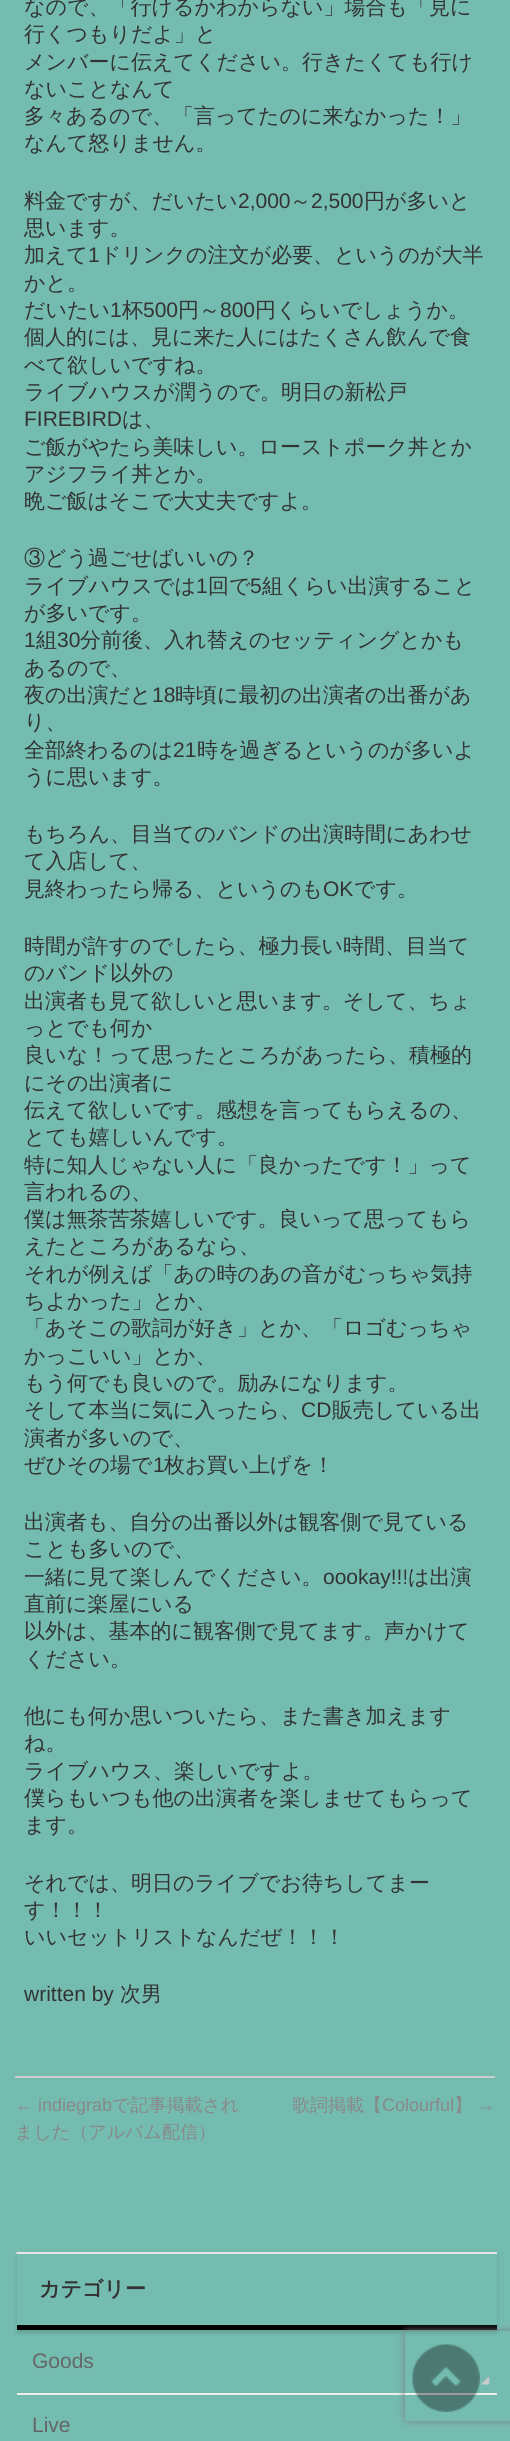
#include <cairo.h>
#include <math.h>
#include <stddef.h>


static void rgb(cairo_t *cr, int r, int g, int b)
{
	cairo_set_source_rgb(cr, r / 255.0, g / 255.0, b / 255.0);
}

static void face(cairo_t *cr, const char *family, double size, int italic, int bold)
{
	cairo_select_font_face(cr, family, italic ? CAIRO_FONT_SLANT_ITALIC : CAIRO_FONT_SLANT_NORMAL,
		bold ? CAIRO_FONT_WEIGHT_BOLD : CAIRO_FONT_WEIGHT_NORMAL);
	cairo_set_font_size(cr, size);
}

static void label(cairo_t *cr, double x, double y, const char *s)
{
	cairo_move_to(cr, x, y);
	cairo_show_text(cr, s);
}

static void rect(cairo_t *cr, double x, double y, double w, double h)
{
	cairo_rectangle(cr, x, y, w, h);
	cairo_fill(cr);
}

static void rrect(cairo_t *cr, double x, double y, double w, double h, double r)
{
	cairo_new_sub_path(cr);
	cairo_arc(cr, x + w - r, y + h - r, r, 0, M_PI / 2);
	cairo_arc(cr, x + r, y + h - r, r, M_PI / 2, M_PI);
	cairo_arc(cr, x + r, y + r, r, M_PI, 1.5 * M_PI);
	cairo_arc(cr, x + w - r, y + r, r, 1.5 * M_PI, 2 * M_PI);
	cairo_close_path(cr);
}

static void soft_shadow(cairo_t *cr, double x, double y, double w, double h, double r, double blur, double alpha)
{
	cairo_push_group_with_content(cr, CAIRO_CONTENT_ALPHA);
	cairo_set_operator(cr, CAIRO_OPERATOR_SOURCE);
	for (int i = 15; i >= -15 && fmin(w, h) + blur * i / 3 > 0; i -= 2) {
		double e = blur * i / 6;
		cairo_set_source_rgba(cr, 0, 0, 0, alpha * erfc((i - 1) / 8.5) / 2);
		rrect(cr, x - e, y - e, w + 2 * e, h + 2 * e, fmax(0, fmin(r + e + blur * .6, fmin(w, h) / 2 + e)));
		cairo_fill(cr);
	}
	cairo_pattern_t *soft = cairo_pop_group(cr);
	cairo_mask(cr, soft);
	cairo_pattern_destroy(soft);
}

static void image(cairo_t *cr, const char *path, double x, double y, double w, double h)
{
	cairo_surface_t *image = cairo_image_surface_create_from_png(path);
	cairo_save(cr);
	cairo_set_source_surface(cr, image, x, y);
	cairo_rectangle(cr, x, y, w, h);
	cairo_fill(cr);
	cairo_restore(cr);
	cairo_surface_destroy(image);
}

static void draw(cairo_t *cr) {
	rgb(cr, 116, 188, 176);
	cairo_paint(cr);
	face(cr, "WenQuanYi Zen Hei Medium", 21, 0, 0);
	rgb(cr, 51, 51, 51);
	label(cr, 24, 14, "なので、「行けるかわからない」場合も「見に");
	label(cr, 24, 41, "行くつもりだよ」と");
	label(cr, 24, 69, "メンバーに伝えてください。行きたくても行け");
	label(cr, 24, 96, "ないことなんて");
	label(cr, 24, 123, "多々あるので、「言ってたのに来なかった！」");
	label(cr, 24, 150, "なんて怒りません。");
	label(cr, 24, 208, "料金ですが、だいたい");
	face(cr, "Liberation Sans", 21, 0, 0);
	label(cr, 238, 208, "2,000");
	face(cr, "WenQuanYi Zen Hei Medium", 21, 0, 0);
	label(cr, 290, 208, "～");
	face(cr, "Liberation Sans", 21, 0, 0);
	label(cr, 311, 208, "2,500");
	face(cr, "WenQuanYi Zen Hei Medium", 21, 0, 0);
	label(cr, 364, 208, "円が多いと");
	label(cr, 24, 235, "思います。");
	label(cr, 24, 262, "加えて");
	face(cr, "Liberation Sans", 21, 0, 0);
	label(cr, 88, 262, "1");
	face(cr, "WenQuanYi Zen Hei Medium", 21, 0, 0);
	label(cr, 100, 262, "ドリンクの注文が必要、というのが大半");
	label(cr, 24, 290, "かと。");
	label(cr, 24, 317, "だいたい");
	face(cr, "Liberation Sans", 21, 0, 0);
	label(cr, 110, 317, "1");
	face(cr, "WenQuanYi Zen Hei Medium", 21, 0, 0);
	label(cr, 122, 317, "杯");
	face(cr, "Liberation Sans", 21, 0, 0);
	label(cr, 143, 317, "500");
	face(cr, "WenQuanYi Zen Hei Medium", 21, 0, 0);
	label(cr, 178, 317, "円～");
	face(cr, "Liberation Sans", 21, 0, 0);
	label(cr, 220, 317, "800");
	face(cr, "WenQuanYi Zen Hei Medium", 21, 0, 0);
	label(cr, 255, 317, "円くらいでしょうか。");
	label(cr, 24, 344, "個人的には、見に来た人にはたくさん飲んで食");
	label(cr, 24, 372, "べて欲しいですね。");
	label(cr, 24, 399, "ライブハウスが潤うので。明日の新松戸");
	face(cr, "Liberation Sans", 21, 0, 0);
	label(cr, 24, 426, "FIREBIRD");
	face(cr, "WenQuanYi Zen Hei Medium", 21, 0, 0);
	label(cr, 122, 426, "は、");
	label(cr, 24, 454, "ご飯がやたら美味しい。ローストポーク丼とか");
	label(cr, 24, 481, "アジフライ丼とか。");
	label(cr, 24, 508, "晩ご飯はそこで大丈夫ですよ。");
	label(cr, 24, 565, "③どう過ごせばいいの？");
	label(cr, 24, 593, "ライブハウスでは");
	face(cr, "Liberation Sans", 21, 0, 0);
	label(cr, 196, 593, "1");
	face(cr, "WenQuanYi Zen Hei Medium", 21, 0, 0);
	label(cr, 208, 593, "回で");
	face(cr, "Liberation Sans", 21, 0, 0);
	label(cr, 250, 593, "5");
	face(cr, "WenQuanYi Zen Hei Medium", 21, 0, 0);
	label(cr, 262, 593, "組くらい出演すること");
	label(cr, 24, 620, "が多いです。");
	face(cr, "Liberation Sans", 21, 0, 0);
	label(cr, 24, 647, "1");
	face(cr, "WenQuanYi Zen Hei Medium", 21, 0, 0);
	label(cr, 36, 647, "組");
	face(cr, "Liberation Sans", 21, 0, 0);
	label(cr, 57, 647, "30");
	face(cr, "WenQuanYi Zen Hei Medium", 21, 0, 0);
	label(cr, 80, 647, "分前後、入れ替えのセッティングとかも");
	label(cr, 24, 675, "あるので、");
	label(cr, 24, 702, "夜の出演だと");
	face(cr, "Liberation Sans", 21, 0, 0);
	label(cr, 152, 702, "18");
	face(cr, "WenQuanYi Zen Hei Medium", 21, 0, 0);
	label(cr, 175, 702, "時頃に最初の出演者の出番があ");
	label(cr, 24, 729, "り、");
	label(cr, 24, 757, "全部終わるのは");
	face(cr, "Liberation Sans", 21, 0, 0);
	label(cr, 173, 757, "21");
	face(cr, "WenQuanYi Zen Hei Medium", 21, 0, 0);
	label(cr, 197, 757, "時を過ぎるというのが多いよ");
	label(cr, 24, 784, "うに思います。");
	label(cr, 24, 841, "もちろん、目当てのバンドの出演時間にあわせ");
	label(cr, 24, 868, "て入店して、");
	label(cr, 24, 896, "見終わったら帰る、というのも");
	face(cr, "Liberation Sans", 21, 0, 0);
	label(cr, 323, 896, "OK");
	face(cr, "WenQuanYi Zen Hei Medium", 21, 0, 0);
	label(cr, 354, 896, "です。");
	label(cr, 24, 953, "時間が許すのでしたら、極力長い時間、目当て");
	label(cr, 24, 980, "のバンド以外の");
	label(cr, 24, 1008, "出演者も見て欲しいと思います。そして、ちょ");
	label(cr, 24, 1035, "っとでも何か");
	label(cr, 24, 1062, "良いな！って思ったところがあったら、積極的");
	label(cr, 24, 1090, "にその出演者に");
	label(cr, 24, 1117, "伝えて欲しいです。感想を言ってもらえるの、");
	label(cr, 24, 1144, "とても嬉しいんです。");
	label(cr, 24, 1172, "特に知人じゃない人に「良かったです！」って");
	label(cr, 24, 1199, "言われるの、");
	label(cr, 24, 1226, "僕は無茶苦茶嬉しいです。良いって思ってもら");
	label(cr, 24, 1253, "えたところがあるなら、");
	label(cr, 24, 1281, "それが例えば「あの時のあの音がむっちゃ気持");
	label(cr, 24, 1308, "ちよかった」とか、");
	label(cr, 24, 1335, "「あそこの歌詞が好き」とか、「ロゴむっちゃ");
	label(cr, 24, 1363, "かっこいい」とか、");
	label(cr, 24, 1390, "もう何でも良いので。励みになります。");
	label(cr, 24, 1417, "そして本当に気に入ったら、");
	face(cr, "Liberation Sans", 21, 0, 0);
	label(cr, 301, 1417, "CD");
	face(cr, "WenQuanYi Zen Hei Medium", 21, 0, 0);
	label(cr, 332, 1417, "販売している出");
	label(cr, 24, 1445, "演者が多いので、");
	label(cr, 24, 1472, "ぜひその場で");
	face(cr, "Liberation Sans", 21, 0, 0);
	label(cr, 153, 1472, "1");
	face(cr, "WenQuanYi Zen Hei Medium", 21, 0, 0);
	label(cr, 164, 1472, "枚お買い上げを！");
	label(cr, 24, 1529, "出演者も、自分の出番以外は観客側で見ている");
	label(cr, 24, 1556, "ことも多いので、");
	label(cr, 24, 1584, "一緒に見て楽しんでください。");
	face(cr, "Liberation Sans", 21, 0, 0);
	label(cr, 323, 1584, "oookay!!!");
	face(cr, "WenQuanYi Zen Hei Medium", 21, 0, 0);
	label(cr, 408, 1584, "は出演");
	label(cr, 24, 1611, "直前に楽屋にいる");
	label(cr, 24, 1638, "以外は、基本的に観客側で見てます。声かけて");
	label(cr, 24, 1666, "ください。");
	label(cr, 24, 1723, "他にも何か思いついたら、また書き加えます");
	label(cr, 24, 1750, "ね。");
	label(cr, 24, 1778, "ライブハウス、楽しいですよ。");
	label(cr, 24, 1805, "僕らもいつも他の出演者を楽しませてもらって");
	label(cr, 24, 1832, "ます。");
	label(cr, 24, 1890, "それでは、明日のライブでお待ちしてまー");
	label(cr, 24, 1917, "す！！！");
	label(cr, 24, 1944, "いいセットリストなんだぜ！！！");
	face(cr, "Liberation Sans", 21, 0, 0);
	label(cr, 24, 2001, "written by");
	face(cr, "WenQuanYi Zen Hei Medium", 21, 0, 0);
	label(cr, 120, 2001, "次男");
	rgb(cr, 204, 204, 204);
	rect(cr, 15, 2076, 480, 2);
	face(cr, "Liberation Sans", 18, 0, 0);
	rgb(cr, 136, 136, 136);
	label(cr, 15, 2111, "← indiegrab");
	face(cr, "WenQuanYi Zen Hei Medium", 18, 0, 0);
	label(cr, 112, 2111, "で記事掲載され");
	label(cr, 15, 2138, "ました（アルバム配信）");
	label(cr, 292, 2111, "歌詞掲載【");
	face(cr, "Liberation Sans", 18, 0, 0);
	label(cr, 382, 2111, "Colourful");
	face(cr, "WenQuanYi Zen Hei Medium", 18, 0, 0);
	label(cr, 454, 2111, "】");
	face(cr, "Liberation Sans", 18, 0, 0);
	label(cr, 477, 2111, "→");
	cairo_save(cr);
	cairo_set_fill_rule(cr, CAIRO_FILL_RULE_EVEN_ODD);
	cairo_new_path(cr);
	cairo_move_to(cr, 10, 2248);
	cairo_line_to(cr, 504, 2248);
	cairo_line_to(cr, 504, 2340);
	cairo_line_to(cr, 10, 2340);
	cairo_close_path(cr);
	cairo_move_to(cr, 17, 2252);
	cairo_line_to(cr, 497, 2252);
	cairo_line_to(cr, 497, 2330);
	cairo_line_to(cr, 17, 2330);
	cairo_close_path(cr);
	cairo_clip(cr);
	rgb(cr, 0, 0, 0);
	soft_shadow(cr, 17, 2255, 480, 78, 0, 2, 0.15);
	cairo_restore(cr);
	image(cr, "image0.png", 16, 2252, 1, 2);
	rgb(cr, 229, 229, 229);
	rect(cr, 17, 2252, 480, 2);
	rgb(cr, 0, 0, 0);
	rect(cr, 17, 2325, 480, 5);
	face(cr, "WenQuanYi Zen Hei", 21, 0, 1);
	rgb(cr, 51, 51, 51);
	label(cr, 39, 2296, "カテゴリー");
	rgb(cr, 238, 238, 238);
	rect(cr, 17, 2393, 480, 2);
	image(cr, "image1.png", 481, 2377, 9, 8);
	face(cr, "Liberation Sans", 21, 0, 0);
	rgb(cr, 102, 102, 102);
	label(cr, 32, 2368, "Goods");
	label(cr, 32, 2432, "Live");
	cairo_save(cr);
	cairo_set_fill_rule(cr, CAIRO_FILL_RULE_EVEN_ODD);
	cairo_new_path(cr);
	cairo_move_to(cr, 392, 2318);
	cairo_line_to(cr, 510, 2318);
	cairo_line_to(cr, 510, 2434);
	cairo_line_to(cr, 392, 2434);
	cairo_close_path(cr);
	cairo_move_to(cr, 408, 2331);
	cairo_line_to(cr, 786, 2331);
	cairo_curve_to(cr, 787.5, 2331, 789, 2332.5, 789, 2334);
	cairo_line_to(cr, 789, 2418);
	cairo_curve_to(cr, 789, 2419.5, 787.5, 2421, 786, 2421);
	cairo_line_to(cr, 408, 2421);
	cairo_curve_to(cr, 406.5, 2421, 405, 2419.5, 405, 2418);
	cairo_line_to(cr, 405, 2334);
	cairo_curve_to(cr, 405, 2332.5, 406.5, 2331, 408, 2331);
	cairo_close_path(cr);
	cairo_clip(cr);
	rgb(cr, 128, 128, 128);
	soft_shadow(cr, 405, 2331, 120, 90, 3, 4, 1);
	cairo_restore(cr);
	image(cr, "image2.png", 412, 2344, 68, 68);
}

int main(void) {
	cairo_surface_t *surface = cairo_image_surface_create(CAIRO_FORMAT_RGB24, 510, 2441);
	cairo_t *cr = cairo_create(surface);
	cairo_font_options_t *options = cairo_font_options_create();
	cairo_font_options_set_hint_metrics(options, CAIRO_HINT_METRICS_OFF);
	cairo_font_options_set_hint_style(options, CAIRO_HINT_STYLE_NONE);
	cairo_set_font_options(cr, options);
	cairo_set_miter_limit(cr, 4);
	draw(cr);
	cairo_surface_write_to_png(surface, "render.png");
	cairo_font_options_destroy(options);
	cairo_destroy(cr);
	cairo_surface_destroy(surface);
	return 0;
}
